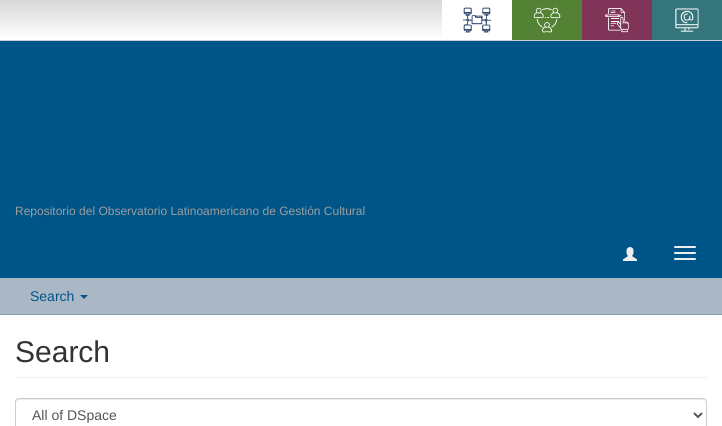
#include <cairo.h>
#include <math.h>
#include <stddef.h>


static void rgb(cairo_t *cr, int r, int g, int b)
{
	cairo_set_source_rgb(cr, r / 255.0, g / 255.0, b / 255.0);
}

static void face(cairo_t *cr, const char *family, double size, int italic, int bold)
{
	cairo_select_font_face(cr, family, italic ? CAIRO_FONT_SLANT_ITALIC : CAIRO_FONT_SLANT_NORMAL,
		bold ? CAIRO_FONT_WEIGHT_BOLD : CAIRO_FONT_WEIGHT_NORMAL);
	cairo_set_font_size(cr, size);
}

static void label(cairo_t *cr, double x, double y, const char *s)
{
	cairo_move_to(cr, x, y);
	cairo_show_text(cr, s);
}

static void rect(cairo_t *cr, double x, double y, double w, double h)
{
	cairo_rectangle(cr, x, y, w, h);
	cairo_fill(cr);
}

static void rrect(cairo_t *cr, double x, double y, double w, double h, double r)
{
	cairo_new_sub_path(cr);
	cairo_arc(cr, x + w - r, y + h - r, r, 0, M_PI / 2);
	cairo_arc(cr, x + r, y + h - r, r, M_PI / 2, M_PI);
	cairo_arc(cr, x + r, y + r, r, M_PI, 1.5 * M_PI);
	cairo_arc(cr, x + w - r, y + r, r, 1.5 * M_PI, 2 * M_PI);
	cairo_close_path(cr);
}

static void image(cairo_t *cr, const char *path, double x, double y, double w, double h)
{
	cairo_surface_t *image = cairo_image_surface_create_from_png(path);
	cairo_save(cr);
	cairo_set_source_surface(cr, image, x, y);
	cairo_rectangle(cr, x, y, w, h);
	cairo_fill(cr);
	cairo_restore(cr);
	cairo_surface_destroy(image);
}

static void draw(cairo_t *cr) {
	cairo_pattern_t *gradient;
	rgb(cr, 255, 255, 255);
	cairo_paint(cr);
	gradient = cairo_pattern_create_linear(361, 0, 361, 40);
	cairo_pattern_add_color_stop_rgba(gradient, 0, 0, 0, 0, 1);
	cairo_pattern_add_color_stop_rgba(gradient, 0, 0.847, 0.847, 0.847, 1);
	cairo_pattern_add_color_stop_rgba(gradient, 1, 1, 1, 1, 1);
	cairo_set_source(cr, gradient);
	cairo_pattern_destroy(gradient);
	rect(cr, 0, 0, 442, 37);
	rgb(cr, 206, 206, 206);
	rect(cr, 0, 40, 722, 1);
	image(cr, "image0.png", 462, 7, 30, 26);
	rgb(cr, 84, 130, 53);
	rect(cr, 512, 0, 70, 40);
	image(cr, "image1.png", 533, 7, 28, 26);
	rgb(cr, 127, 52, 88);
	rect(cr, 582, 0, 70, 40);
	image(cr, "image2.png", 604, 8, 25, 25);
	rgb(cr, 53, 117, 124);
	rect(cr, 652, 0, 70, 40);
	image(cr, "image3.png", 675, 8, 24, 24);
	rgb(cr, 0, 85, 136);
	rect(cr, 0, 41, 722, 237);
	face(cr, "Liberation Sans", 12, 0, 0);
	rgb(cr, 157, 157, 157);
	label(cr, 15, 215, "Repositorio del Observatorio Latinoamericano de Gestión Cultural");
	image(cr, "image4.png", 623, 247, 14, 14);
	rgb(cr, 238, 238, 238);
	rrect(cr, 674, 246, 22, 2, 1);
	cairo_fill(cr);
	rrect(cr, 674, 252, 22, 2, 1);
	cairo_fill(cr);
	rrect(cr, 674, 258, 22, 2, 1);
	cairo_fill(cr);
	rgb(cr, 170, 184, 198);
	rect(cr, 0, 278, 722, 36);
	rgb(cr, 139, 158, 178);
	rect(cr, 0, 314, 722, 1);
	face(cr, "Liberation Sans", 14, 0, 0);
	rgb(cr, 0, 85, 136);
	label(cr, 30, 301, "Search");
	cairo_new_path(cr);
	cairo_move_to(cr, 80, 295);
	cairo_line_to(cr, 88, 295);
	cairo_line_to(cr, 84, 299);
	cairo_close_path(cr);
	cairo_fill(cr);
	rgb(cr, 238, 238, 238);
	rect(cr, 15, 377, 692, 1);
	face(cr, "Liberation Sans", 30, 0, 0);
	rgb(cr, 51, 51, 51);
	label(cr, 15, 362, "Search");
	rgb(cr, 236, 236, 236);
	cairo_new_path(cr);
	cairo_move_to(cr, 19, 400);
	cairo_line_to(cr, 703, 400);
	cairo_curve_to(cr, 705, 400, 706, 401, 706, 403);
	cairo_line_to(cr, 706, 402);
	cairo_curve_to(cr, 706, 400, 705, 399, 703, 399);
	cairo_line_to(cr, 19, 399);
	cairo_curve_to(cr, 17, 399, 16, 400, 16, 402);
	cairo_line_to(cr, 16, 403);
	cairo_curve_to(cr, 16, 401, 17, 400, 19, 400);
	cairo_close_path(cr);
	cairo_fill(cr);
	rrect(cr, 15.5, 398.5, 691, 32, 3.5);
	rgb(cr, 204, 204, 204);
	cairo_set_line_width(cr, 1);
	cairo_stroke(cr);
	cairo_new_path(cr);
	cairo_move_to(cr, 694, 413);
	cairo_line_to(cr, 698, 417);
	cairo_line_to(cr, 702, 413);
	rgb(cr, 85, 85, 85);
	cairo_set_line_width(cr, 2);
	cairo_stroke(cr);
	face(cr, "Liberation Sans", 14, 0, 0);
	label(cr, 32, 420, "All of DSpace");
}

int main(void) {
	cairo_surface_t *surface = cairo_image_surface_create(CAIRO_FORMAT_RGB24, 722, 426);
	cairo_t *cr = cairo_create(surface);
	cairo_font_options_t *options = cairo_font_options_create();
	cairo_font_options_set_hint_metrics(options, CAIRO_HINT_METRICS_OFF);
	cairo_font_options_set_hint_style(options, CAIRO_HINT_STYLE_NONE);
	cairo_set_font_options(cr, options);
	cairo_set_miter_limit(cr, 4);
	draw(cr);
	cairo_surface_write_to_png(surface, "render.png");
	cairo_font_options_destroy(options);
	cairo_destroy(cr);
	cairo_surface_destroy(surface);
	return 0;
}
